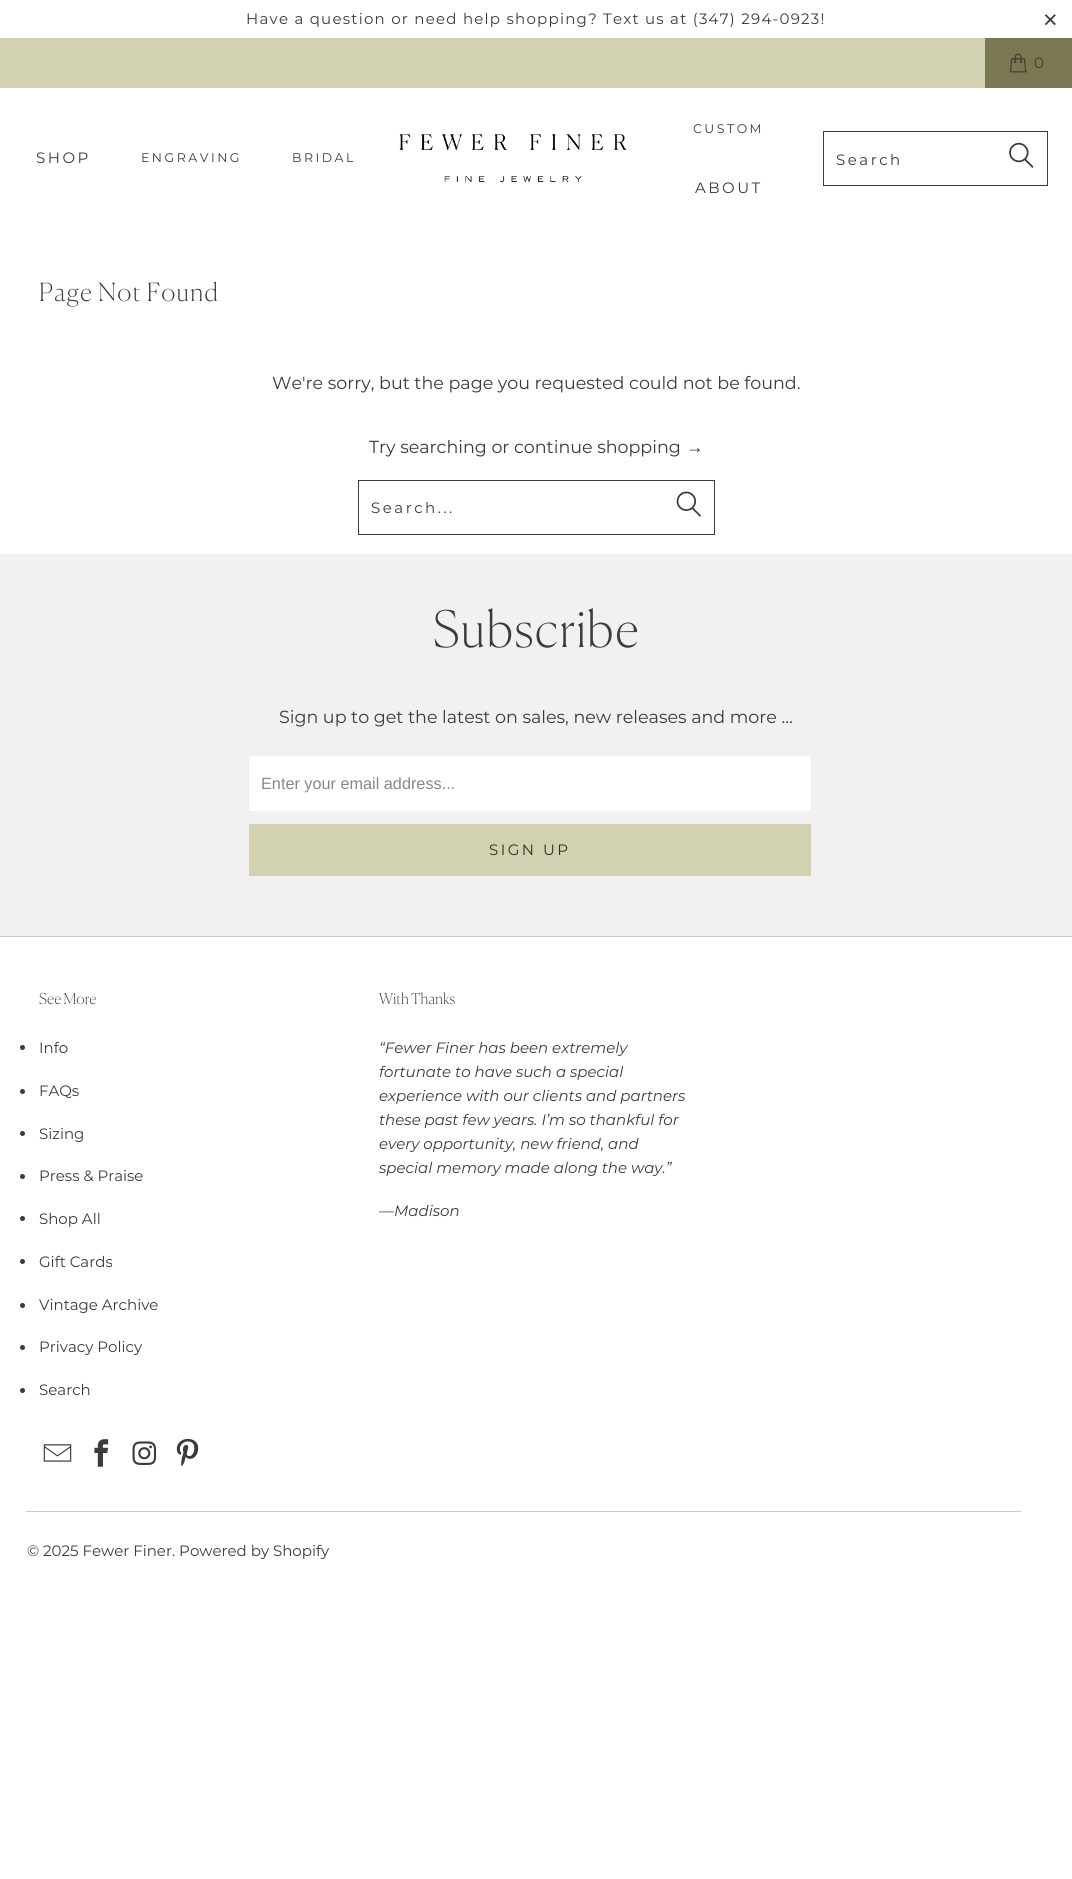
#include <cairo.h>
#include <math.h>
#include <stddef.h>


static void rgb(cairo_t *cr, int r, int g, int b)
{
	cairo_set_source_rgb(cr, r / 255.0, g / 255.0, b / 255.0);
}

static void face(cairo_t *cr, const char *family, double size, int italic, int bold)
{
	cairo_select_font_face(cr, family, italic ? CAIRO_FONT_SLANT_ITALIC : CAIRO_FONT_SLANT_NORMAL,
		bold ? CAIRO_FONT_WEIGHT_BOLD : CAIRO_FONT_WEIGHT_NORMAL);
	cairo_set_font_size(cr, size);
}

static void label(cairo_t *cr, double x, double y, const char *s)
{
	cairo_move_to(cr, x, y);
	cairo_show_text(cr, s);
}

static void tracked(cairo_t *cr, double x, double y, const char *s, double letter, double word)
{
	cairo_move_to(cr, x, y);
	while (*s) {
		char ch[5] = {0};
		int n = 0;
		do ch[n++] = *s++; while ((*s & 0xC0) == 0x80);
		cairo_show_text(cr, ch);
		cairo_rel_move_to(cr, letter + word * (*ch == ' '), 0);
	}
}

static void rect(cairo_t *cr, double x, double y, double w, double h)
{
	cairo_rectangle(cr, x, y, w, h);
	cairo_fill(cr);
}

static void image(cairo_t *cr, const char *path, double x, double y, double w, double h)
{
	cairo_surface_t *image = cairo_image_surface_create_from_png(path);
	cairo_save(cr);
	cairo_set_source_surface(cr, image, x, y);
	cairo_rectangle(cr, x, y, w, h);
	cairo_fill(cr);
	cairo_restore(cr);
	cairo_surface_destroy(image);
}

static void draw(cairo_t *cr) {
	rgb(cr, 255, 255, 255);
	cairo_paint(cr);
	face(cr, "Montserrat", 15, 0, 0);
	rgb(cr, 59, 59, 59);
	tracked(cr, 246, 24, "Have a question or need help shopping? Text us at (347) 294-0923!", 1.25, 0);
	face(cr, "Liberation Sans", 25, 0, 0);
	tracked(cr, 1043, 28, "×", 1.25, 0);
	rgb(cr, 210, 210, 178);
	rect(cr, 0, 38, 985, 50);
	rgb(cr, 121, 120, 82);
	rect(cr, 985, 38, 87, 50);
	image(cr, "image0.png", 1010, 53, 17, 20);
	face(cr, "Montserrat", 15, 0, 0);
	rgb(cr, 59, 59, 59);
	tracked(cr, 1034, 68, "0", 1.25, 0);
	tracked(cr, 36, 163, "SHOP", 2.5, 0);
	face(cr, "Montserrat", 12.5, 0, 0);
	tracked(cr, 141, 162, "ENGRAVING", 2.5, 0);
	tracked(cr, 292, 162, "BRIDAL", 2.5, 0);
	image(cr, "image1.png", 399, 134, 228, 49);
	tracked(cr, 693, 133, "CUSTOM", 2.5, 0);
	face(cr, "Montserrat", 15, 0, 0);
	tracked(cr, 695, 193, "ABOUT", 2.5, 0);
	cairo_rectangle(cr, 823.5, 131.5, 224, 54);
	cairo_set_line_width(cr, 1);
	cairo_stroke(cr);
	tracked(cr, 836, 165, "Search", 2.5, 0);
	image(cr, "image2.png", 1009, 142, 25, 26);
	face(cr, "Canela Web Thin", 25, 0, 0);
	tracked(cr, 39, 301, "Page Not Found", 1.25, 0);
	face(cr, "Montserrat", 17.5, 0, 0);
	label(cr, 272, 389, "We're sorry, but the page you requested could not be found.");
	label(cr, 369, 453, "Try searching or continue shopping");
	face(cr, "Liberation Sans", 17.5, 0, 0);
	label(cr, 686, 453, "→");
	cairo_rectangle(cr, 358.5, 480.5, 356, 54);
	cairo_stroke(cr);
	face(cr, "Montserrat", 15, 0, 0);
	tracked(cr, 371, 513, "Search...", 2.5, 0);
	image(cr, "image3.png", 676, 491, 25, 26);
	rgb(cr, 242, 241, 241);
	rect(cr, 0, 554, 1072, 382);
	face(cr, "Canela Web Thin", 50, 0, 0);
	rgb(cr, 59, 59, 59);
	tracked(cr, 433, 647, "Subscribe", 1.25, 0);
	face(cr, "Montserrat", 17.5, 0, 0);
	label(cr, 279, 723, "Sign up to get the latest on sales, new releases and more …");
	rgb(cr, 255, 255, 255);
	rect(cr, 249, 756, 562, 55);
	face(cr, "Liberation Sans", 16.25, 0, 0);
	rgb(cr, 136, 136, 136);
	label(cr, 261, 789, "Enter your email address...");
	rgb(cr, 210, 210, 178);
	rect(cr, 249, 824, 562, 52);
	face(cr, "Montserrat", 15, 0, 0);
	rgb(cr, 47, 49, 35);
	tracked(cr, 489, 855, "SIGN UP", 2.5, 0);
	rgb(cr, 204, 204, 204);
	rect(cr, 0, 936, 1072, 1);
	face(cr, "Canela Web Thin", 15, 0, 0);
	rgb(cr, 59, 59, 59);
	label(cr, 39, 1004, "See More");
	cairo_new_path(cr);
	cairo_arc(cr, 22.5, 1047.5, 2.5, 0, 2 * M_PI);
	cairo_fill(cr);
	face(cr, "Montserrat", 15, 0, 0);
	label(cr, 39, 1053, "Info");
	cairo_new_path(cr);
	cairo_arc(cr, 22.5, 1091.5, 2.5, 0, 2 * M_PI);
	cairo_fill(cr);
	label(cr, 39, 1096, "FAQs");
	cairo_new_path(cr);
	cairo_arc(cr, 22.5, 1133.5, 2.5, 0, 2 * M_PI);
	cairo_fill(cr);
	label(cr, 39, 1139, "Sizing");
	cairo_new_path(cr);
	cairo_arc(cr, 22.5, 1176.5, 2.5, 0, 2 * M_PI);
	cairo_fill(cr);
	label(cr, 39, 1181, "Press & Praise");
	cairo_new_path(cr);
	cairo_arc(cr, 22.5, 1218.5, 2.5, 0, 2 * M_PI);
	cairo_fill(cr);
	label(cr, 39, 1224, "Shop All");
	cairo_new_path(cr);
	cairo_arc(cr, 22.5, 1261.5, 2.5, 0, 2 * M_PI);
	cairo_fill(cr);
	label(cr, 39, 1267, "Gift Cards");
	cairo_new_path(cr);
	cairo_arc(cr, 22.5, 1305.5, 2.5, 0, 2 * M_PI);
	cairo_fill(cr);
	label(cr, 39, 1310, "Vintage Archive");
	cairo_new_path(cr);
	cairo_arc(cr, 22.5, 1347.5, 2.5, 0, 2 * M_PI);
	cairo_fill(cr);
	label(cr, 39, 1352, "Privacy Policy");
	cairo_new_path(cr);
	cairo_arc(cr, 22.5, 1390.5, 2.5, 0, 2 * M_PI);
	cairo_fill(cr);
	label(cr, 39, 1395, "Search");
	image(cr, "image4.png", 43, 1444, 29, 18);
	image(cr, "image5.png", 94, 1439, 15, 28);
	image(cr, "image6.png", 132, 1441, 25, 24);
	image(cr, "image7.png", 176, 1438, 23, 29);
	face(cr, "Canela Web Thin", 15, 0, 0);
	label(cr, 379, 1004, "With Thanks");
	face(cr, "Montserrat", 15, 1, 0);
	label(cr, 379, 1053, "“Fewer Finer has been extremely");
	label(cr, 379, 1077, "fortunate to have such a special");
	label(cr, 379, 1101, "experience with our clients and partners");
	label(cr, 379, 1125, "these past few years. I’m so thankful for");
	label(cr, 379, 1149, "every opportunity, new friend, and");
	label(cr, 379, 1173, "special memory made along the way.”");
	label(cr, 379, 1216, "—Madison");
	rgb(cr, 204, 204, 204);
	rect(cr, 26, 1511, 995, 1);
	face(cr, "Montserrat", 15, 0, 0);
	rgb(cr, 59, 59, 59);
	label(cr, 27, 1556, "© 2025 Fewer Finer");
	label(cr, 172, 1556, ". Powered by Shopify");
}

int main(void) {
	cairo_surface_t *surface = cairo_image_surface_create(CAIRO_FORMAT_RGB24, 1072, 1879);
	cairo_t *cr = cairo_create(surface);
	cairo_font_options_t *options = cairo_font_options_create();
	cairo_font_options_set_hint_metrics(options, CAIRO_HINT_METRICS_OFF);
	cairo_font_options_set_hint_style(options, CAIRO_HINT_STYLE_NONE);
	cairo_set_font_options(cr, options);
	cairo_set_miter_limit(cr, 4);
	draw(cr);
	cairo_surface_write_to_png(surface, "render.png");
	cairo_font_options_destroy(options);
	cairo_destroy(cr);
	cairo_surface_destroy(surface);
	return 0;
}
